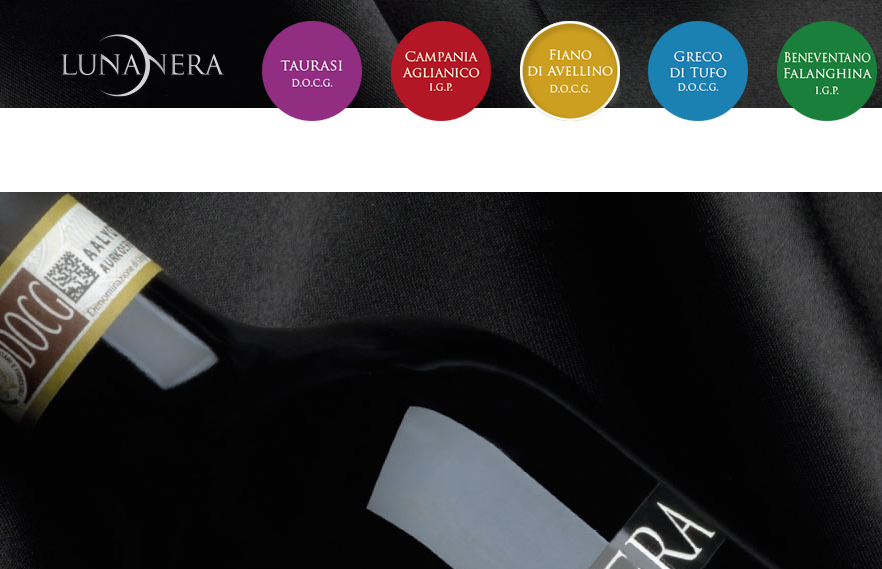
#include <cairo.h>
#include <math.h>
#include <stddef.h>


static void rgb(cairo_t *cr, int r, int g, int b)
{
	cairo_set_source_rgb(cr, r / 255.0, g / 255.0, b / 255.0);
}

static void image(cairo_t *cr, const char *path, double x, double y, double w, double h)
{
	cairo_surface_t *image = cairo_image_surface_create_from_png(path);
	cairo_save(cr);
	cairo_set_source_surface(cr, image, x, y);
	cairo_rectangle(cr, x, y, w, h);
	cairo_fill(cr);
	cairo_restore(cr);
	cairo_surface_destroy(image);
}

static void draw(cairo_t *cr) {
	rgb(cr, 255, 255, 255);
	cairo_paint(cr);
	image(cr, "image0.png", 0, 0, 882, 108);
	image(cr, "image1.png", 61, 34, 164, 64);
	image(cr, "image2.png", 262, 21, 100, 100);
	image(cr, "image3.png", 391, 21, 100, 100);
	image(cr, "image4.png", 520, 21, 100, 100);
	image(cr, "image5.png", 648, 21, 100, 100);
	image(cr, "image6.png", 777, 21, 100, 100);
	image(cr, "image7.png", 0, 192, 882, 377);
}

int main(void) {
	cairo_surface_t *surface = cairo_image_surface_create(CAIRO_FORMAT_RGB24, 882, 569);
	cairo_t *cr = cairo_create(surface);
	cairo_font_options_t *options = cairo_font_options_create();
	cairo_font_options_set_hint_metrics(options, CAIRO_HINT_METRICS_OFF);
	cairo_font_options_set_hint_style(options, CAIRO_HINT_STYLE_NONE);
	cairo_set_font_options(cr, options);
	cairo_set_miter_limit(cr, 4);
	draw(cr);
	cairo_surface_write_to_png(surface, "render.png");
	cairo_font_options_destroy(options);
	cairo_destroy(cr);
	cairo_surface_destroy(surface);
	return 0;
}
